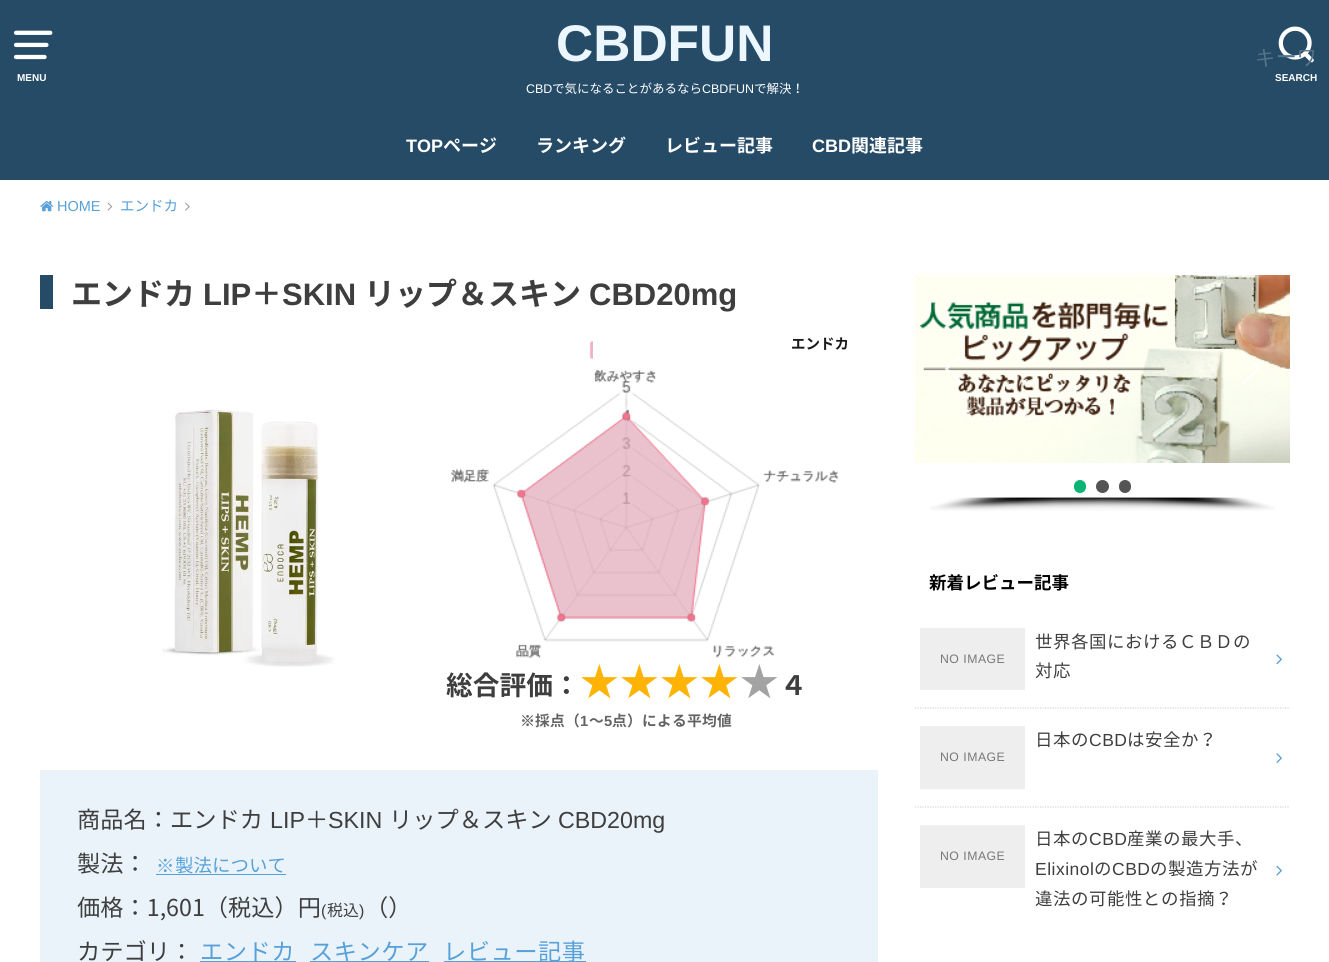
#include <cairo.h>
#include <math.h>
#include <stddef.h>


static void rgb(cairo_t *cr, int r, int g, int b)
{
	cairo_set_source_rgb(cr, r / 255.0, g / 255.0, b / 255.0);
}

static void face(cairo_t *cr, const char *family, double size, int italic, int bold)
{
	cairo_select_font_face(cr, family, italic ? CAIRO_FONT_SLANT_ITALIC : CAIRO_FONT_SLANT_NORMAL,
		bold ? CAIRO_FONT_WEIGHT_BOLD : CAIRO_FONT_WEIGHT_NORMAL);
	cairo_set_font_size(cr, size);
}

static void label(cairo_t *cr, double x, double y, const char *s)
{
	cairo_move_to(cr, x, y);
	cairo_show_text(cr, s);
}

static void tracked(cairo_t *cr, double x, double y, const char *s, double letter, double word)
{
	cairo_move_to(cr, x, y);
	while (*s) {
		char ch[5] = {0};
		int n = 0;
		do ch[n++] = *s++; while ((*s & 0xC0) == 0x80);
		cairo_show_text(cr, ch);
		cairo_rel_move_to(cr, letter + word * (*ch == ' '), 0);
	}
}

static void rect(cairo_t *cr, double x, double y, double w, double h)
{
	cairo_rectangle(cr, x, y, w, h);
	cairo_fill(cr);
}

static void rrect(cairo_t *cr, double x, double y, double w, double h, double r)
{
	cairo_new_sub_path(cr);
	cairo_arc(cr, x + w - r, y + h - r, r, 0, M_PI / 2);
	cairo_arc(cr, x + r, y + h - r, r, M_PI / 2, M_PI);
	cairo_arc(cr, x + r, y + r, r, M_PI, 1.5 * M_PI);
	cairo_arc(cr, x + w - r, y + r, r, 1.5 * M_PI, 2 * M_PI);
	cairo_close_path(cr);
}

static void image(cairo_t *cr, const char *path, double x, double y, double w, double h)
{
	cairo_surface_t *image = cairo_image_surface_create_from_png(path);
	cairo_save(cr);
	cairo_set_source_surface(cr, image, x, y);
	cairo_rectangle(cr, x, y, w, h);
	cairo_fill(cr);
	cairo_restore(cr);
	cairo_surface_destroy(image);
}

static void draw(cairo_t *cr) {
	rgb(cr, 255, 255, 255);
	cairo_paint(cr);
	rgb(cr, 38, 75, 103);
	rect(cr, 0, 0, 1329, 180);
	image(cr, "image0.png", 13, 30, 40, 30);
	face(cr, "Liberation Sans", 10, 0, 1);
	rgb(cr, 255, 255, 255);
	label(cr, 17, 81, "MENU");
	face(cr, "Liberation Sans", 51.5, 0, 1);
	rgb(cr, 236, 246, 255);
	label(cr, 556, 61, "CBDFUN");
	face(cr, "Liberation Sans", 12.5, 0, 0);
	rgb(cr, 255, 255, 255);
	label(cr, 526, 93, "CBD");
	face(cr, "Noto Sans JP", 12.5, 0, 0);
	label(cr, 552, 93, "で気になることがあるなら");
	face(cr, "Liberation Sans", 12.5, 0, 0);
	label(cr, 702, 93, "CBDFUN");
	face(cr, "Noto Sans JP", 12.5, 0, 0);
	label(cr, 754, 93, "で解決！");
	image(cr, "image1.png", 1278, 26, 36, 37);
	face(cr, "WenQuanYi Zen Hei Medium", 20.5, 0, 0);
	rgb(cr, 87, 116, 138);
	label(cr, 1255, 64, "キーワ");
	face(cr, "Liberation Sans", 10, 0, 1);
	rgb(cr, 255, 255, 255);
	label(cr, 1275, 81, "SEARCH");
	face(cr, "Liberation Sans", 18, 0, 1);
	label(cr, 406, 152, "TOP");
	face(cr, "Noto Sans JP", 18, 0, 1);
	label(cr, 443, 152, "ページ");
	label(cr, 536, 152, "ランキング");
	label(cr, 665, 152, "レビュー記事");
	face(cr, "Liberation Sans", 18, 0, 1);
	label(cr, 812, 152, "CBD");
	face(cr, "Noto Sans JP", 18, 0, 1);
	label(cr, 851, 152, "関連記事");
	image(cr, "image2.png", 40, 200, 14, 12);
	face(cr, "Liberation Sans", 14.5, 0, 0);
	rgb(cr, 87, 161, 216);
	label(cr, 57, 211, "HOME");
	image(cr, "image3.png", 107, 202, 6, 9);
	face(cr, "Noto Sans JP", 14.5, 0, 0);
	label(cr, 120, 211, "エンドカ");
	image(cr, "image4.png", 185, 202, 5, 9);
	rgb(cr, 38, 75, 103);
	rect(cr, 40, 275, 13, 34);
	face(cr, "Noto Sans JP", 31, 0, 1);
	rgb(cr, 62, 62, 62);
	label(cr, 71, 305, "エンドカ");
	face(cr, "Liberation Sans", 31, 0, 1);
	label(cr, 203, 305, "LIP");
	face(cr, "Noto Sans JP", 31, 0, 1);
	label(cr, 251, 305, "＋");
	face(cr, "Liberation Sans", 31, 0, 1);
	label(cr, 282, 305, "SKIN");
	face(cr, "Noto Sans JP", 31, 0, 1);
	label(cr, 364, 305, "リップ＆スキン");
	face(cr, "Liberation Sans", 31, 0, 1);
	label(cr, 589, 305, "CBD20mg");
	image(cr, "image6.png", 451, 341, 388, 317);
	face(cr, "Noto Sans JP", 14.5, 0, 1);
	rgb(cr, 26, 26, 26);
	label(cr, 791, 349, "エンドカ");
	image(cr, "image5.png", 162, 409, 173, 258);
	rgb(cr, 255, 255, 255);
	rect(cr, 593, 341, 50, 18);
	face(cr, "Noto Sans JP", 26.75, 0, 1);
	rgb(cr, 62, 62, 62);
	label(cr, 446, 695, "総合評価：");
	face(cr, "WenQuanYi Zen Hei", 37.5, 0, 1);
	rgb(cr, 255, 179, 5);
	tracked(cr, 580, 695, "★★★★", 2.5, 0);
	rgb(cr, 163, 163, 163);
	tracked(cr, 740, 695, "★", 2.5, 0);
	face(cr, "Noto Sans JP", 26.75, 0, 1);
	rgb(cr, 62, 62, 62);
	label(cr, 780, 695, "４");
	face(cr, "WenQuanYi Zen Hei", 14.75, 0, 1);
	rgb(cr, 99, 99, 99);
	tracked(cr, 520, 726, "※", 0.25, 0);
	face(cr, "Noto Sans JP", 14.75, 0, 1);
	tracked(cr, 535, 726, "採点（", 0.25, 0);
	face(cr, "Liberation Sans", 14.75, 0, 1);
	tracked(cr, 580, 726, "1", 0.25, 0);
	face(cr, "Noto Sans JP", 14.75, 0, 1);
	tracked(cr, 589, 726, "〜", 0.25, 0);
	face(cr, "Liberation Sans", 14.75, 0, 1);
	tracked(cr, 604, 726, "5", 0.25, 0);
	face(cr, "Noto Sans JP", 14.75, 0, 1);
	tracked(cr, 612, 726, "点）による平均値", 0.25, 0);
	rgb(cr, 235, 243, 250);
	rect(cr, 40, 770, 838, 192);
	face(cr, "Noto Sans JP", 23.25, 0, 0);
	rgb(cr, 62, 62, 62);
	label(cr, 77, 828, "商品名：エンドカ");
	face(cr, "Liberation Sans", 23.25, 0, 0);
	label(cr, 270, 828, "LIP");
	face(cr, "Noto Sans JP", 23.25, 0, 0);
	label(cr, 305, 828, "＋");
	face(cr, "Liberation Sans", 23.25, 0, 0);
	label(cr, 328, 828, "SKIN");
	face(cr, "Noto Sans JP", 23.25, 0, 0);
	label(cr, 389, 828, "リップ＆スキン");
	face(cr, "Liberation Sans", 23.25, 0, 0);
	label(cr, 558, 828, "CBD20mg");
	face(cr, "Noto Sans JP", 23.25, 0, 0);
	label(cr, 77, 872, "製法：");
	face(cr, "WenQuanYi Zen Hei Medium", 18.5, 0, 0);
	rgb(cr, 87, 161, 216);
	label(cr, 156, 872, "※");
	rect(cr, 156, 874, 130, 1);
	face(cr, "Noto Sans JP", 18.5, 0, 0);
	label(cr, 175, 872, "製法について");
	face(cr, "Noto Sans JP", 23.25, 0, 0);
	rgb(cr, 62, 62, 62);
	label(cr, 77, 916, "価格：1,601（税込）円");
	face(cr, "Liberation Sans", 16, 0, 0);
	label(cr, 321, 916, "(");
	face(cr, "Noto Sans JP", 16, 0, 0);
	label(cr, 327, 916, "税込");
	face(cr, "Liberation Sans", 16, 0, 0);
	label(cr, 359, 916, ")");
	face(cr, "Noto Sans JP", 23.25, 0, 0);
	label(cr, 365, 916, "（）");
	label(cr, 77, 960, "カテゴリ：");
	rgb(cr, 87, 161, 216);
	tracked(cr, 200, 960, "エンドカ", 0.5, 0);
	rect(cr, 200, 961, 96, 1);
	rect(cr, 310, 961, 119, 1);
	tracked(cr, 310, 960, "スキンケア", 0.5, 0);
	rect(cr, 444, 961, 142, 1);
	tracked(cr, 443, 960, "レビュー記事", 0.5, 0);
	image(cr, "image7.png", 915, 275, 375, 188);
	image(cr, "image8.png", 945, 354, 18, 30);
	image(cr, "image9.png", 1242, 354, 18, 30);
	rgb(cr, 9, 180, 116);
	rrect(cr, 1074, 480, 12, 13, 6);
	cairo_fill(cr);
	rgb(cr, 84, 84, 84);
	cairo_arc(cr, 1102.5, 486.5, 6.5, 0, 2 * M_PI);
	cairo_fill(cr);
	rrect(cr, 1119, 480, 12, 13, 6);
	cairo_fill(cr);
	image(cr, "image10.png", 930, 497, 345, 14);
	face(cr, "Noto Sans JP", 17.5, 0, 1);
	rgb(cr, 0, 0, 0);
	label(cr, 929, 589, "新着レビュー記事");
	cairo_new_path(cr);
	cairo_move_to(cr, 915, 708);
	cairo_line_to(cr, 1290, 708);
	rgb(cr, 216, 216, 216);
	cairo_set_line_width(cr, 1.2);
	cairo_set_dash(cr, (double[]){1.25, 1.25}, 2, 0);
	cairo_stroke(cr);
	rgb(cr, 238, 238, 238);
	rect(cr, 920, 628, 105, 62);
	face(cr, "Liberation Sans", 12.25, 0, 0);
	rgb(cr, 119, 119, 119);
	tracked(cr, 940, 663, "NO IMAGE", 0.5, 0);
	face(cr, "Noto Sans JP", 17.5, 0, 0);
	rgb(cr, 62, 62, 62);
	tracked(cr, 1035, 648, "世界各国におけるＣＢＤの", 0.5, 0);
	tracked(cr, 1035, 677, "対応", 0.5, 0);
	image(cr, "image11.png", 1276, 654, 6, 11);
	cairo_new_path(cr);
	cairo_move_to(cr, 915, 807);
	cairo_line_to(cr, 1290, 807);
	rgb(cr, 216, 216, 216);
	cairo_stroke(cr);
	rgb(cr, 62, 62, 62);
	tracked(cr, 1035, 746, "日本の", 0.5, 0);
	face(cr, "Liberation Sans", 17.5, 0, 0);
	tracked(cr, 1089, 746, "CBD", 0.5, 0);
	face(cr, "Noto Sans JP", 17.5, 0, 0);
	tracked(cr, 1127, 746, "は安全か？", 0.5, 0);
	rgb(cr, 238, 238, 238);
	rect(cr, 920, 726, 105, 63);
	face(cr, "Liberation Sans", 12.25, 0, 0);
	rgb(cr, 119, 119, 119);
	tracked(cr, 940, 761, "NO IMAGE", 0.5, 0);
	image(cr, "image12.png", 1276, 753, 6, 10);
	rgb(cr, 238, 238, 238);
	rect(cr, 920, 825, 105, 63);
	rgb(cr, 119, 119, 119);
	tracked(cr, 940, 860, "NO IMAGE", 0.5, 0);
	face(cr, "Noto Sans JP", 17.5, 0, 0);
	rgb(cr, 62, 62, 62);
	tracked(cr, 1035, 845, "日本の", 0.5, 0);
	face(cr, "Liberation Sans", 17.5, 0, 0);
	tracked(cr, 1089, 845, "CBD", 0.5, 0);
	face(cr, "Noto Sans JP", 17.5, 0, 0);
	tracked(cr, 1127, 845, "産業の最大手、", 0.5, 0);
	face(cr, "Liberation Sans", 17.5, 0, 0);
	tracked(cr, 1035, 875, "Elixinol", 0.5, 0);
	face(cr, "Noto Sans JP", 17.5, 0, 0);
	tracked(cr, 1094, 875, "の", 0.5, 0);
	face(cr, "Liberation Sans", 17.5, 0, 0);
	tracked(cr, 1112, 875, "CBD", 0.5, 0);
	face(cr, "Noto Sans JP", 17.5, 0, 0);
	tracked(cr, 1150, 875, "の製造方法が", 0.5, 0);
	tracked(cr, 1035, 905, "違法の可能性との指摘？", 0.5, 0);
	image(cr, "image13.png", 1276, 865, 6, 11);
}

int main(void) {
	cairo_surface_t *surface = cairo_image_surface_create(CAIRO_FORMAT_RGB24, 1329, 962);
	cairo_t *cr = cairo_create(surface);
	cairo_font_options_t *options = cairo_font_options_create();
	cairo_font_options_set_hint_metrics(options, CAIRO_HINT_METRICS_OFF);
	cairo_font_options_set_hint_style(options, CAIRO_HINT_STYLE_NONE);
	cairo_set_font_options(cr, options);
	cairo_set_miter_limit(cr, 4);
	draw(cr);
	cairo_surface_write_to_png(surface, "render.png");
	cairo_font_options_destroy(options);
	cairo_destroy(cr);
	cairo_surface_destroy(surface);
	return 0;
}
